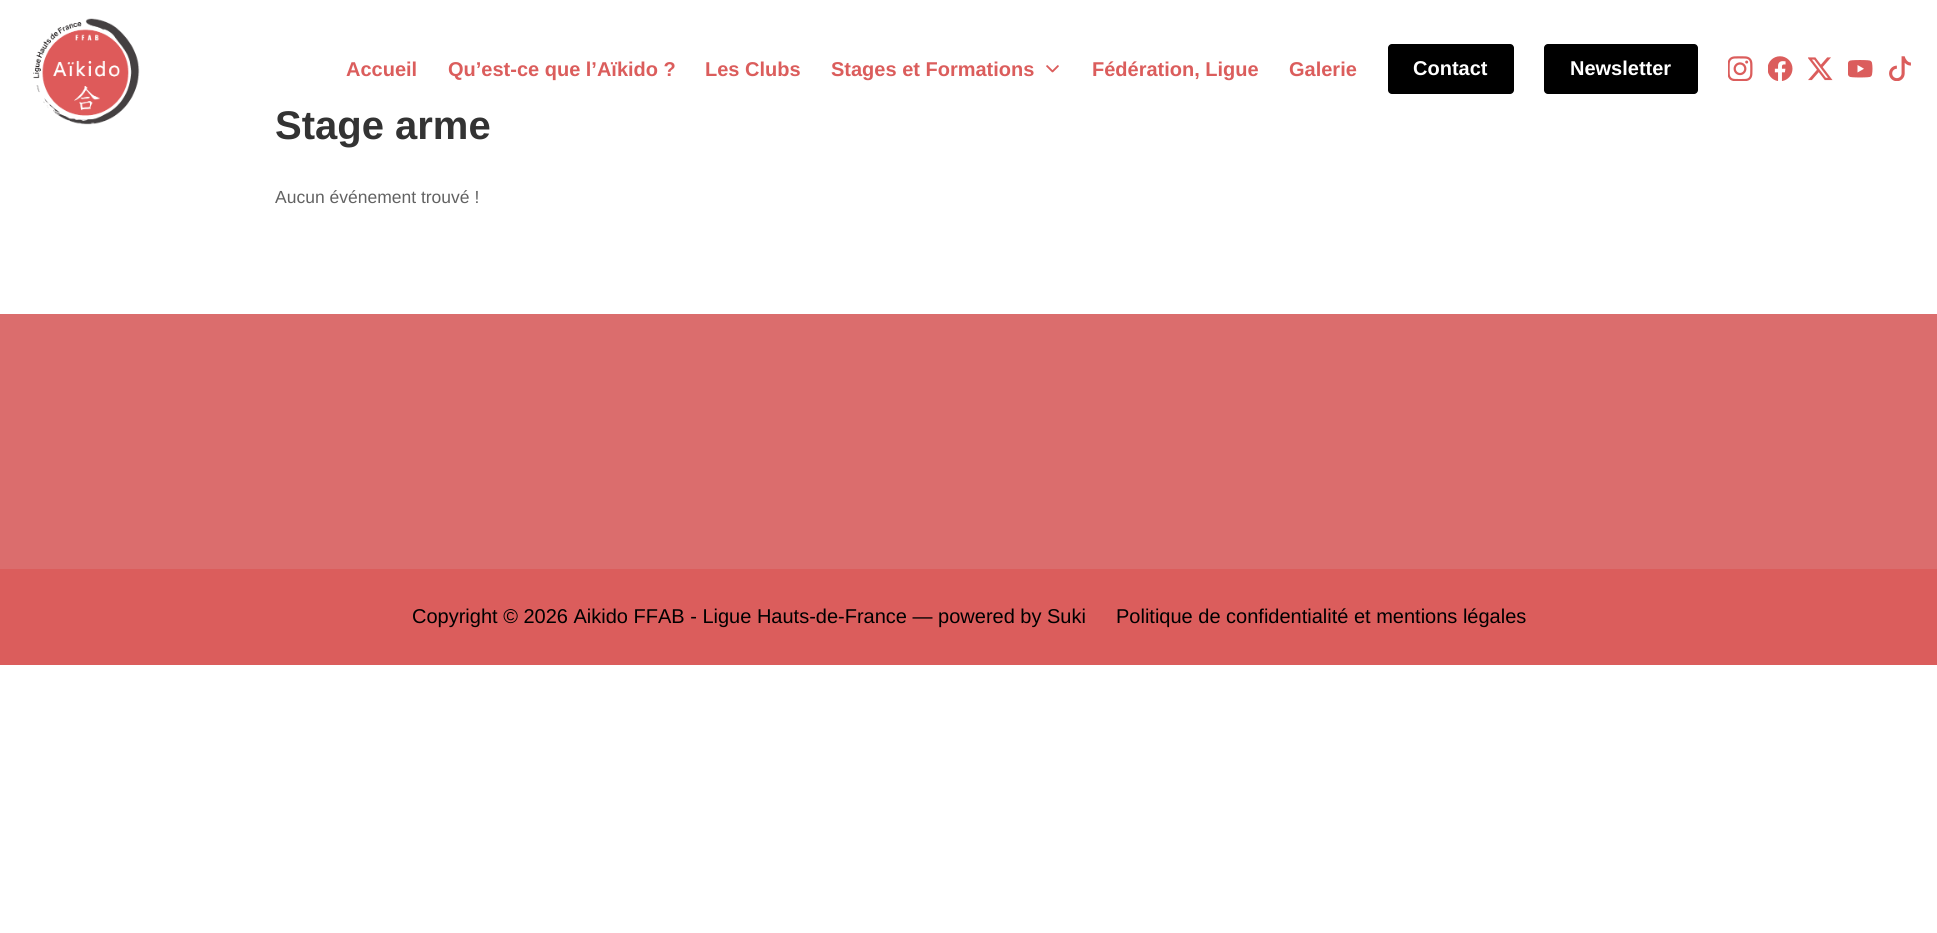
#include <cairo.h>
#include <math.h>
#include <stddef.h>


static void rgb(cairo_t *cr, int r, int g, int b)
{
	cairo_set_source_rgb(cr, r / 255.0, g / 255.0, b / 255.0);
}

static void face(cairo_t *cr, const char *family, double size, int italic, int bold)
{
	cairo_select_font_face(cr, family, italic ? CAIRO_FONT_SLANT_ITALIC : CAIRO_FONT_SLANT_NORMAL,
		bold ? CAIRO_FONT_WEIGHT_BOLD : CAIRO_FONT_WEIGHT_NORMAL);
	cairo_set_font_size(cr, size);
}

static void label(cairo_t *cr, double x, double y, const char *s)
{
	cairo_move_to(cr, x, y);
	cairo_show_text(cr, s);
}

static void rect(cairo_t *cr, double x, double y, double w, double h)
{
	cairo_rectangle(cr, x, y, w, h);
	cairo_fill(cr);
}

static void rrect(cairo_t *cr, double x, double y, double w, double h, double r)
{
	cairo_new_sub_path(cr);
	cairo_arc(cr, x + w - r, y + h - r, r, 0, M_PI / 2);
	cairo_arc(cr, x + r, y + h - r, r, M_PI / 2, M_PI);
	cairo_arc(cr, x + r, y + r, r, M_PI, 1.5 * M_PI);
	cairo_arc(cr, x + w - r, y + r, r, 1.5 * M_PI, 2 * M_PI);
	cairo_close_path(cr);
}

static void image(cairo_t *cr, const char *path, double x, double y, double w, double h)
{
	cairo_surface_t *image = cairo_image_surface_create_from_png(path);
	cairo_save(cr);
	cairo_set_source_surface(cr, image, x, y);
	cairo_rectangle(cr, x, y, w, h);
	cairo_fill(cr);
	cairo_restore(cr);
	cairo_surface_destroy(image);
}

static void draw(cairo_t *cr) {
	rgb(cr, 255, 255, 255);
	cairo_paint(cr);
	image(cr, "image0.png", 33, 18, 107, 107);
	face(cr, "Liberation Sans", 20, 0, 1);
	rgb(cr, 219, 93, 92);
	label(cr, 346, 76, "Accueil");
	label(cr, 448, 76, "Qu’est-ce que l’Aïkido ?");
	label(cr, 705, 76, "Les Clubs");
	label(cr, 831, 76, "Stages et Formations");
	image(cr, "image1.png", 1046, 65, 13, 8);
	label(cr, 1092, 76, "Fédération, Ligue");
	label(cr, 1289, 76, "Galerie");
	rgb(cr, 0, 0, 0);
	rrect(cr, 1388, 44, 126, 50, 4);
	cairo_fill(cr);
	rgb(cr, 255, 255, 255);
	label(cr, 1413, 75, "Contact");
	rgb(cr, 0, 0, 0);
	rrect(cr, 1544, 44, 154, 50, 4);
	cairo_fill(cr);
	rgb(cr, 255, 255, 255);
	label(cr, 1570, 75, "Newsletter");
	image(cr, "image2.png", 1728, 56, 25, 25);
	image(cr, "image3.png", 1768, 56, 25, 25);
	image(cr, "image4.png", 1808, 57, 25, 24);
	image(cr, "image5.png", 1848, 60, 25, 18);
	image(cr, "image6.png", 1889, 56, 22, 25);
	face(cr, "Liberation Sans", 40, 0, 1);
	rgb(cr, 51, 51, 51);
	label(cr, 275, 139, "Stage arme");
	face(cr, "Liberation Sans", 17.5, 0, 0);
	rgb(cr, 98, 98, 98);
	label(cr, 275, 203, "Aucun événement trouvé !");
	rgb(cr, 219, 109, 109);
	rect(cr, 0, 314, 1937, 255);
	rgb(cr, 219, 93, 92);
	rect(cr, 0, 569, 1937, 96);
	face(cr, "Liberation Sans", 20, 0, 0);
	rgb(cr, 0, 0, 0);
	label(cr, 412, 623, "Copyright © 2026 Aikido FFAB - Ligue Hauts-de-France — powered by Suki");
	label(cr, 1116, 623, "Politique de confidentialité et mentions légales");
}

int main(void) {
	cairo_surface_t *surface = cairo_image_surface_create(CAIRO_FORMAT_RGB24, 1937, 933);
	cairo_t *cr = cairo_create(surface);
	cairo_font_options_t *options = cairo_font_options_create();
	cairo_font_options_set_hint_metrics(options, CAIRO_HINT_METRICS_OFF);
	cairo_font_options_set_hint_style(options, CAIRO_HINT_STYLE_NONE);
	cairo_set_font_options(cr, options);
	cairo_set_miter_limit(cr, 4);
	draw(cr);
	cairo_surface_write_to_png(surface, "render.png");
	cairo_font_options_destroy(options);
	cairo_destroy(cr);
	cairo_surface_destroy(surface);
	return 0;
}
